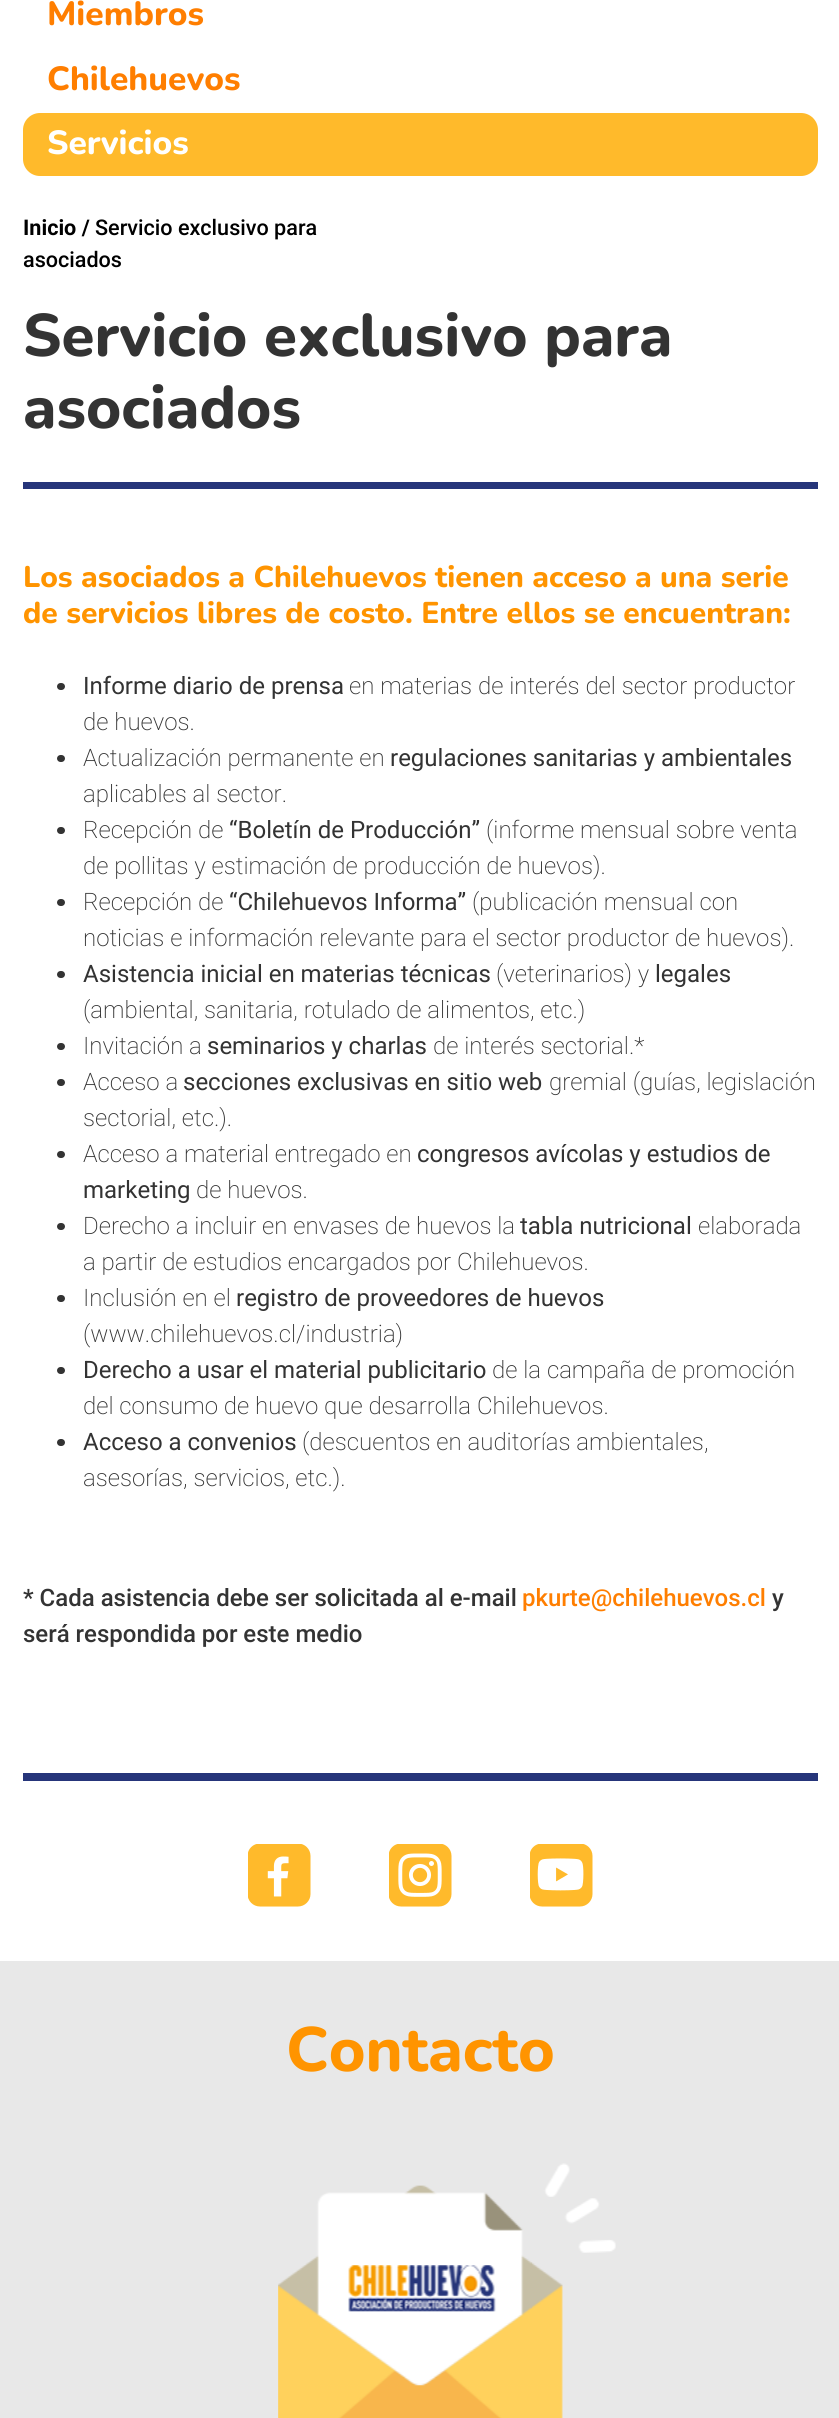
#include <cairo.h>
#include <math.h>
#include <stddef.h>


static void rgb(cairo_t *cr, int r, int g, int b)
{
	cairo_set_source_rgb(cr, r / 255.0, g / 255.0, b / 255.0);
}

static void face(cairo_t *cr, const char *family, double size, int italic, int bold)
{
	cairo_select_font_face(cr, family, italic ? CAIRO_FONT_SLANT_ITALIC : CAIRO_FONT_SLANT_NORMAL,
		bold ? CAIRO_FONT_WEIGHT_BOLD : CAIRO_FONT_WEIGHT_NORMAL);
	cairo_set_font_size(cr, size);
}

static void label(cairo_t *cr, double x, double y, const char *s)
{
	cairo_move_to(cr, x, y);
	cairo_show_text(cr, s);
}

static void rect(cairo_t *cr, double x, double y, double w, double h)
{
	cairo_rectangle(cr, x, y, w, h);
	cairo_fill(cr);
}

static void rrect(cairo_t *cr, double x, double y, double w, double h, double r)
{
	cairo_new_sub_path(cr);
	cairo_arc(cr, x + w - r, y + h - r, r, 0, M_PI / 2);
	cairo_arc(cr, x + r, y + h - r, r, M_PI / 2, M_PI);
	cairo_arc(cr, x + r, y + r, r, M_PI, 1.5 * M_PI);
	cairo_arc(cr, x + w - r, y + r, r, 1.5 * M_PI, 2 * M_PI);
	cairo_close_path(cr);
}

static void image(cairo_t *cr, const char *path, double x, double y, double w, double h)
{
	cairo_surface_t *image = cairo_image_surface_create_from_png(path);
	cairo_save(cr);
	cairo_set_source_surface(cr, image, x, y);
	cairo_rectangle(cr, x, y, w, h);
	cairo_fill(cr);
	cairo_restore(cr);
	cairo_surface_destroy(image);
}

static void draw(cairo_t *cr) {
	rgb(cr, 255, 255, 255);
	cairo_paint(cr);
	face(cr, "Nunito ExtraLight", 33.5, 0, 0);
	rgb(cr, 255, 126, 0);
	label(cr, 47, 25, "Miembros");
	label(cr, 47, 90, "Chilehuevos");
	rgb(cr, 255, 186, 43);
	rrect(cr, 23, 113, 795, 63, 17);
	cairo_fill(cr);
	rgb(cr, 255, 255, 255);
	label(cr, 47, 154, "Servicios");
	face(cr, "Roboto", 21.6, 0, 1);
	rgb(cr, 0, 0, 0);
	label(cr, 23, 235, "Inicio /");
	face(cr, "Roboto Medium", 21.6, 0, 0);
	label(cr, 95, 235, "Servicio exclusivo para");
	label(cr, 23, 267, "asociados");
	face(cr, "Nunito ExtraLight", 60, 0, 0);
	rgb(cr, 51, 51, 51);
	label(cr, 23, 356, "Servicio exclusivo para");
	label(cr, 23, 428, "asociados");
	rgb(cr, 38, 53, 122);
	rect(cr, 23, 482, 795, 7);
	face(cr, "Nunito ExtraLight", 30, 0, 0);
	rgb(cr, 255, 148, 0);
	label(cr, 23, 587, "Los asociados a Chilehuevos tienen acceso a una serie");
	label(cr, 23, 623, "de servicios libres de costo. Entre ellos se encuentran:");
	rgb(cr, 51, 51, 51);
	rrect(cr, 57, 683, 8, 7, 3.5);
	cairo_fill(cr);
	face(cr, "Roboto", 24, 0, 0);
	label(cr, 83, 694, "Informe diario de prensa");
	face(cr, "Roboto ExtraLight", 24, 0, 0);
	label(cr, 349, 694, "en materias de interés del sector productor");
	label(cr, 83, 730, "de huevos.");
	rrect(cr, 57, 755, 8, 7, 3.5);
	cairo_fill(cr);
	label(cr, 83, 766, "Actualización permanente en");
	face(cr, "Roboto", 24, 0, 0);
	label(cr, 390, 766, "regulaciones sanitarias y ambientales");
	face(cr, "Roboto ExtraLight", 24, 0, 0);
	label(cr, 83, 802, "aplicables al sector.");
	rrect(cr, 57, 827, 8, 7, 3.5);
	cairo_fill(cr);
	label(cr, 83, 838, "Recepción de");
	face(cr, "Roboto", 24, 0, 0);
	label(cr, 229, 838, "“Boletín de Producción”");
	face(cr, "Roboto ExtraLight", 24, 0, 0);
	label(cr, 486, 838, "(informe mensual sobre venta");
	label(cr, 83, 874, "de pollitas y estimación de producción de huevos).");
	rrect(cr, 57, 899, 8, 7, 3.5);
	cairo_fill(cr);
	label(cr, 83, 910, "Recepción de");
	face(cr, "Roboto", 24, 0, 0);
	label(cr, 229, 910, "“Chilehuevos Informa”");
	face(cr, "Roboto ExtraLight", 24, 0, 0);
	label(cr, 472, 910, "(publicación mensual con");
	label(cr, 83, 946, "noticias e información relevante para el sector productor de huevos).");
	rrect(cr, 57, 971, 8, 7, 3.5);
	cairo_fill(cr);
	face(cr, "Roboto", 24, 0, 0);
	label(cr, 83, 982, "Asistencia inicial en materias técnicas");
	face(cr, "Roboto ExtraLight", 24, 0, 0);
	label(cr, 496, 982, "(veterinarios) y");
	face(cr, "Roboto", 24, 0, 0);
	label(cr, 655, 982, "legales");
	face(cr, "Roboto ExtraLight", 24, 0, 0);
	label(cr, 83, 1018, "(ambiental, sanitaria, rotulado de alimentos, etc.)");
	rrect(cr, 57, 1043, 8, 7, 3.5);
	cairo_fill(cr);
	label(cr, 83, 1054, "Invitación a");
	face(cr, "Roboto", 24, 0, 0);
	label(cr, 207, 1054, "seminarios y charlas");
	face(cr, "Roboto ExtraLight", 24, 0, 0);
	label(cr, 433, 1054, "de interés sectorial.*");
	rrect(cr, 57, 1079, 8, 7, 3.5);
	cairo_fill(cr);
	label(cr, 83, 1090, "Acceso a");
	face(cr, "Roboto", 24, 0, 0);
	label(cr, 183, 1090, "secciones exclusivas en sitio web");
	face(cr, "Roboto ExtraLight", 24, 0, 0);
	label(cr, 549, 1090, "gremial (guías, legislación");
	label(cr, 83, 1126, "sectorial, etc.).");
	rrect(cr, 57, 1151, 8, 7, 3.5);
	cairo_fill(cr);
	label(cr, 83, 1162, "Acceso a material entregado en");
	face(cr, "Roboto", 24, 0, 0);
	label(cr, 417, 1162, "congresos avícolas y estudios de");
	label(cr, 83, 1198, "marketing");
	face(cr, "Roboto ExtraLight", 24, 0, 0);
	label(cr, 196, 1198, "de huevos.");
	rrect(cr, 57, 1223, 8, 7, 3.5);
	cairo_fill(cr);
	label(cr, 83, 1234, "Derecho a incluir en envases de huevos la");
	face(cr, "Roboto", 24, 0, 0);
	label(cr, 520, 1234, "tabla nutricional");
	face(cr, "Roboto ExtraLight", 24, 0, 0);
	label(cr, 698, 1234, "elaborada");
	label(cr, 83, 1270, "a partir de estudios encargados por Chilehuevos.");
	rrect(cr, 57, 1295, 8, 7, 3.5);
	cairo_fill(cr);
	label(cr, 83, 1306, "Inclusión en el");
	face(cr, "Roboto", 24, 0, 0);
	label(cr, 236, 1306, "registro de proveedores de huevos");
	face(cr, "Roboto ExtraLight", 24, 0, 0);
	label(cr, 83, 1342, "(www.chilehuevos.cl/industria)");
	rrect(cr, 57, 1367, 8, 7, 3.5);
	cairo_fill(cr);
	face(cr, "Roboto", 24, 0, 0);
	label(cr, 83, 1378, "Derecho a usar el material publicitario");
	face(cr, "Roboto ExtraLight", 24, 0, 0);
	label(cr, 492, 1378, "de la campaña de promoción");
	label(cr, 83, 1414, "del consumo de huevo que desarrolla Chilehuevos.");
	rrect(cr, 57, 1439, 8, 7, 3.5);
	cairo_fill(cr);
	face(cr, "Roboto", 24, 0, 0);
	label(cr, 83, 1450, "Acceso a convenios");
	face(cr, "Roboto ExtraLight", 24, 0, 0);
	label(cr, 302, 1450, "(descuentos en auditorías ambientales,");
	label(cr, 83, 1486, "asesorías, servicios, etc.).");
	face(cr, "Roboto Medium", 24, 0, 0);
	label(cr, 23, 1606, "* Cada asistencia debe ser solicitada al e-mail");
	rgb(cr, 255, 126, 0);
	label(cr, 522, 1606, "pkurte@chilehuevos.cl");
	rgb(cr, 51, 51, 51);
	label(cr, 772, 1606, "y");
	label(cr, 23, 1642, "será respondida por este medio");
	rgb(cr, 38, 53, 122);
	rect(cr, 23, 1773, 795, 8);
	image(cr, "image0.png", 248, 1844, 63, 63);
	image(cr, "image1.png", 389, 1844, 63, 63);
	image(cr, "image2.png", 530, 1844, 63, 63);
	rgb(cr, 232, 232, 232);
	rect(cr, 0, 1961, 839, 457);
	face(cr, "Nunito ExtraLight", 62.5, 0, 0);
	rgb(cr, 255, 148, 0);
	label(cr, 286, 2071, "Contacto");
	image(cr, "image3.png", 278, 2163, 338, 255);
}

int main(void) {
	cairo_surface_t *surface = cairo_image_surface_create(CAIRO_FORMAT_RGB24, 839, 2418);
	cairo_t *cr = cairo_create(surface);
	cairo_font_options_t *options = cairo_font_options_create();
	cairo_font_options_set_hint_metrics(options, CAIRO_HINT_METRICS_OFF);
	cairo_font_options_set_hint_style(options, CAIRO_HINT_STYLE_NONE);
	cairo_set_font_options(cr, options);
	cairo_set_miter_limit(cr, 4);
	draw(cr);
	cairo_surface_write_to_png(surface, "render.png");
	cairo_font_options_destroy(options);
	cairo_destroy(cr);
	cairo_surface_destroy(surface);
	return 0;
}
